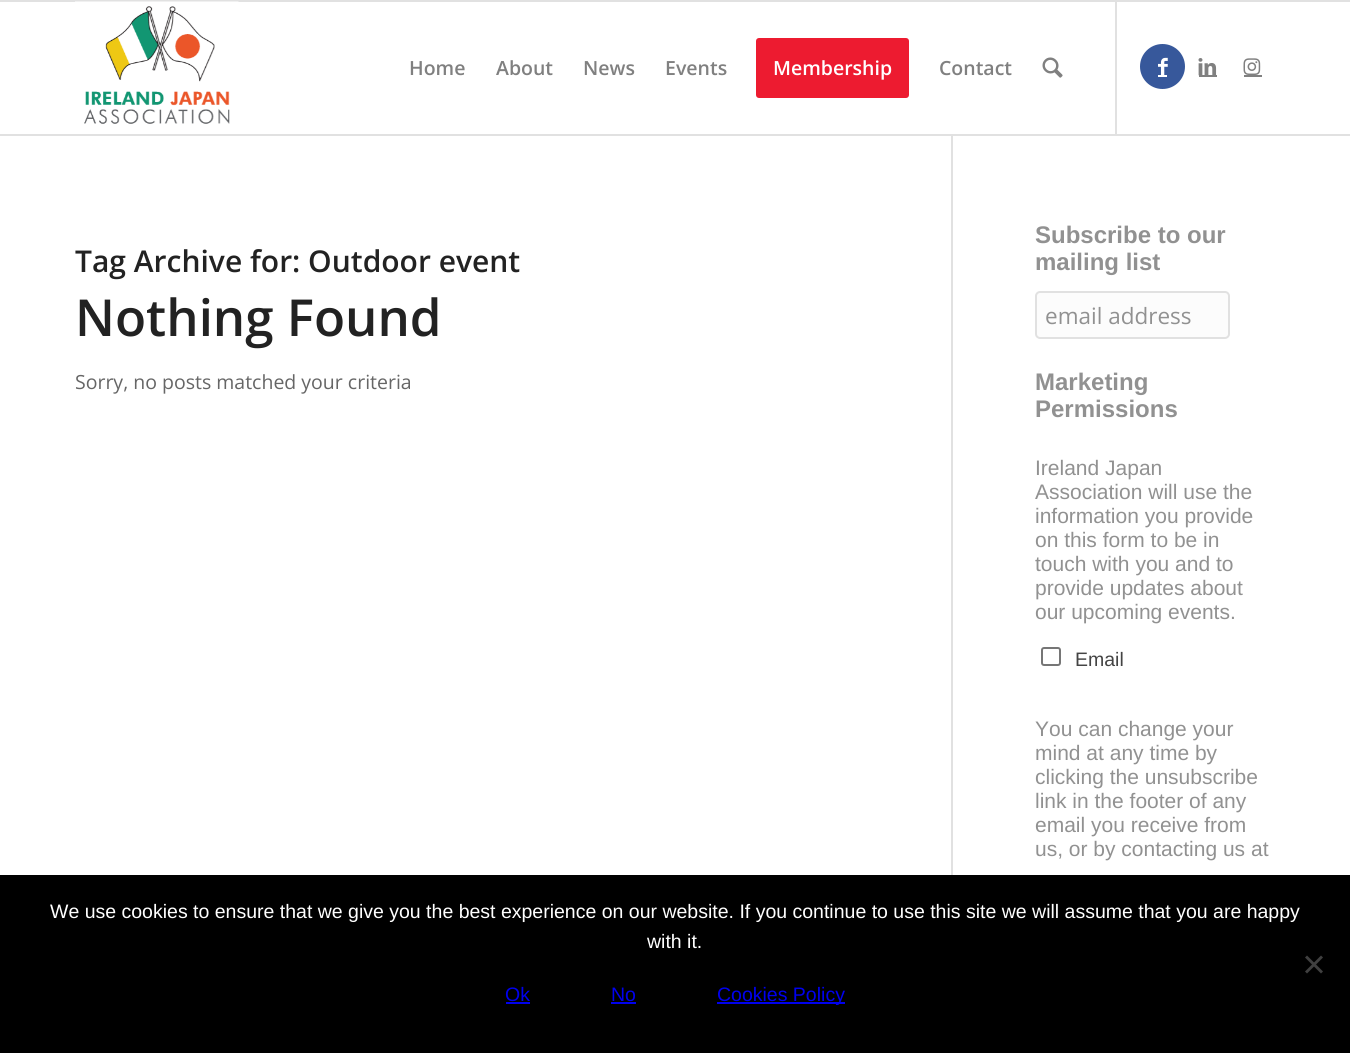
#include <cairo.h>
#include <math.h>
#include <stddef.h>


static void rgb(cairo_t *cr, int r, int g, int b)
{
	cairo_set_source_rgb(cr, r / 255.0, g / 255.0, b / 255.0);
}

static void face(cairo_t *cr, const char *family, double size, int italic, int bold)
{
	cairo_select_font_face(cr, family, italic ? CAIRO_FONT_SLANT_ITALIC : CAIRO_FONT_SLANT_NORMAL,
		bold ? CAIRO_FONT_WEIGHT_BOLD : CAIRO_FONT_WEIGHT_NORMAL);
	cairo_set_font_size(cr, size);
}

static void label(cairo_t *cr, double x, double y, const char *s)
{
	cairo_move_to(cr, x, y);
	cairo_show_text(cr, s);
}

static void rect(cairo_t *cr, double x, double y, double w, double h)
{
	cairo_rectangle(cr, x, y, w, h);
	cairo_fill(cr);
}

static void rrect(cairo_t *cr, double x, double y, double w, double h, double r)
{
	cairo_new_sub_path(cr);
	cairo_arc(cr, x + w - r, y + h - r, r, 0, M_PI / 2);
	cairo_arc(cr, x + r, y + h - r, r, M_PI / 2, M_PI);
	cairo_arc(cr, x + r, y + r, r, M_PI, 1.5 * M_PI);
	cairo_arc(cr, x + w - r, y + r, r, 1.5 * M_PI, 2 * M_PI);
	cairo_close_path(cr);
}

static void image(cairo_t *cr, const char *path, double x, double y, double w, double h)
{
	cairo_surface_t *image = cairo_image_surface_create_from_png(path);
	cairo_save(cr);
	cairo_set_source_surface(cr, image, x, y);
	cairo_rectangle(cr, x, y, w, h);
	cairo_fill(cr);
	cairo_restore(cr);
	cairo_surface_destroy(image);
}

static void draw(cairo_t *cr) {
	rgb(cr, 255, 255, 255);
	cairo_paint(cr);
	rgb(cr, 225, 225, 225);
	rect(cr, 0, 0, 1350, 2);
	rect(cr, 951, 132, 2, 743);
	rect(cr, 0, 134, 1350, 2);
	image(cr, "image0.png", 75, 1, 164, 123);
	rect(cr, 1115, 2, 2, 132);
	face(cr, "Open Sans SemiBold", 19.5, 0, 0);
	rgb(cr, 128, 128, 128);
	label(cr, 409, 75, "Home");
	label(cr, 496, 75, "About");
	label(cr, 583, 75, "News");
	label(cr, 665, 75, "Events");
	rgb(cr, 237, 27, 48);
	rrect(cr, 757.5, 39.5, 150, 57, 1.5);
	cairo_fill_preserve(cr);
	cairo_set_line_width(cr, 3);
	cairo_stroke(cr);
	rgb(cr, 255, 255, 255);
	label(cr, 773, 75, "Membership");
	rgb(cr, 128, 128, 128);
	label(cr, 939, 75, "Contact");
	image(cr, "image1.png", 1042, 57, 21, 21);
	rgb(cr, 55, 88, 155);
	cairo_arc(cr, 1162.5, 66.5, 22.5, 0, 2 * M_PI);
	cairo_fill(cr);
	image(cr, "image2.png", 1158, 57, 10, 18);
	rgb(cr, 255, 255, 255);
	rect(cr, 1158, 75, 9, 2);
	rgb(cr, 128, 128, 128);
	rect(cr, 1199, 75, 18, 2);
	image(cr, "image3.png", 1198, 58, 19, 18);
	image(cr, "image4.png", 1243, 58, 18, 17);
	rect(cr, 1244, 75, 18, 2);
	rgb(cr, 255, 255, 255);
	rect(cr, 951, 132, 2, 2);
	face(cr, "Open Sans SemiBold", 30, 0, 0);
	rgb(cr, 34, 34, 34);
	label(cr, 75, 272, "Tag Archive for: Outdoor event");
	face(cr, "Open Sans SemiBold", 51, 0, 0);
	label(cr, 75, 336, "Nothing Found");
	face(cr, "Open Sans", 19.5, 0, 0);
	rgb(cr, 102, 102, 102);
	label(cr, 75, 389, "Sorry, no posts matched your criteria");
	face(cr, "Liberation Sans", 24, 0, 1);
	rgb(cr, 145, 145, 145);
	label(cr, 1035, 243, "Subscribe to our");
	label(cr, 1035, 270, "mailing list");
	rgb(cr, 252, 252, 252);
	rrect(cr, 1036, 292, 193, 46, 4);
	cairo_fill_preserve(cr);
	rgb(cr, 225, 225, 225);
	cairo_set_line_width(cr, 2);
	cairo_stroke(cr);
	face(cr, "Open Sans", 22.5, 0, 0);
	rgb(cr, 145, 145, 145);
	label(cr, 1045, 324, "email address");
	face(cr, "Liberation Sans", 24, 0, 1);
	label(cr, 1035, 390, "Marketing");
	label(cr, 1035, 417, "Permissions");
	face(cr, "Liberation Sans", 21, 0, 0);
	label(cr, 1035, 475, "Ireland Japan");
	label(cr, 1035, 499, "Association will use the");
	label(cr, 1035, 523, "information you provide");
	label(cr, 1035, 547, "on this form to be in");
	label(cr, 1035, 571, "touch with you and to");
	label(cr, 1035, 595, "provide updates about");
	label(cr, 1035, 619, "our upcoming events.");
	rrect(cr, 1042, 648, 18, 17, 2);
	rgb(cr, 118, 118, 118);
	cairo_stroke(cr);
	face(cr, "Liberation Sans", 19.5, 0, 0);
	rgb(cr, 68, 68, 68);
	label(cr, 1075, 666, "Email");
	face(cr, "Liberation Sans", 21, 0, 0);
	rgb(cr, 145, 145, 145);
	label(cr, 1035, 736, "You can change your");
	label(cr, 1035, 760, "mind at any time by");
	label(cr, 1035, 784, "clicking the unsubscribe");
	label(cr, 1035, 808, "link in the footer of any");
	label(cr, 1035, 832, "email you receive from");
	label(cr, 1035, 856, "us, or by contacting us at");
	rgb(cr, 0, 0, 0);
	rect(cr, 0, 875, 1350, 178);
	face(cr, "Liberation Sans", 19.5, 0, 0);
	rgb(cr, 255, 255, 255);
	label(cr, 50, 918, "We use cookies to ensure that we give you the best experience on our website. If you continue to use this site we will assume that you are happy");
	label(cr, 647, 948, "with it.");
	rgb(cr, 64, 64, 64);
	cairo_new_path(cr);
	cairo_move_to(cr, 1321, 955.5);
	cairo_line_to(cr, 1323, 957.5);
	cairo_line_to(cr, 1307, 973.5);
	cairo_line_to(cr, 1305, 971.5);
	cairo_close_path(cr);
	cairo_fill(cr);
	cairo_new_path(cr);
	cairo_move_to(cr, 1305, 957.5);
	cairo_line_to(cr, 1307, 955.5);
	cairo_line_to(cr, 1323, 971.5);
	cairo_line_to(cr, 1321, 973.5);
	cairo_close_path(cr);
	cairo_fill(cr);
	rgb(cr, 0, 0, 238);
	label(cr, 505, 1001, "Ok");
	rect(cr, 506, 1002, 24, 2);
	label(cr, 611, 1001, "No");
	rect(cr, 611, 1002, 25, 2);
	rect(cr, 717, 1002, 128, 2);
	label(cr, 717, 1001, "Cookies Policy");
}

int main(void) {
	cairo_surface_t *surface = cairo_image_surface_create(CAIRO_FORMAT_RGB24, 1350, 1053);
	cairo_t *cr = cairo_create(surface);
	cairo_font_options_t *options = cairo_font_options_create();
	cairo_font_options_set_hint_metrics(options, CAIRO_HINT_METRICS_OFF);
	cairo_font_options_set_hint_style(options, CAIRO_HINT_STYLE_NONE);
	cairo_set_font_options(cr, options);
	cairo_set_miter_limit(cr, 4);
	draw(cr);
	cairo_surface_write_to_png(surface, "render.png");
	cairo_font_options_destroy(options);
	cairo_destroy(cr);
	cairo_surface_destroy(surface);
	return 0;
}
